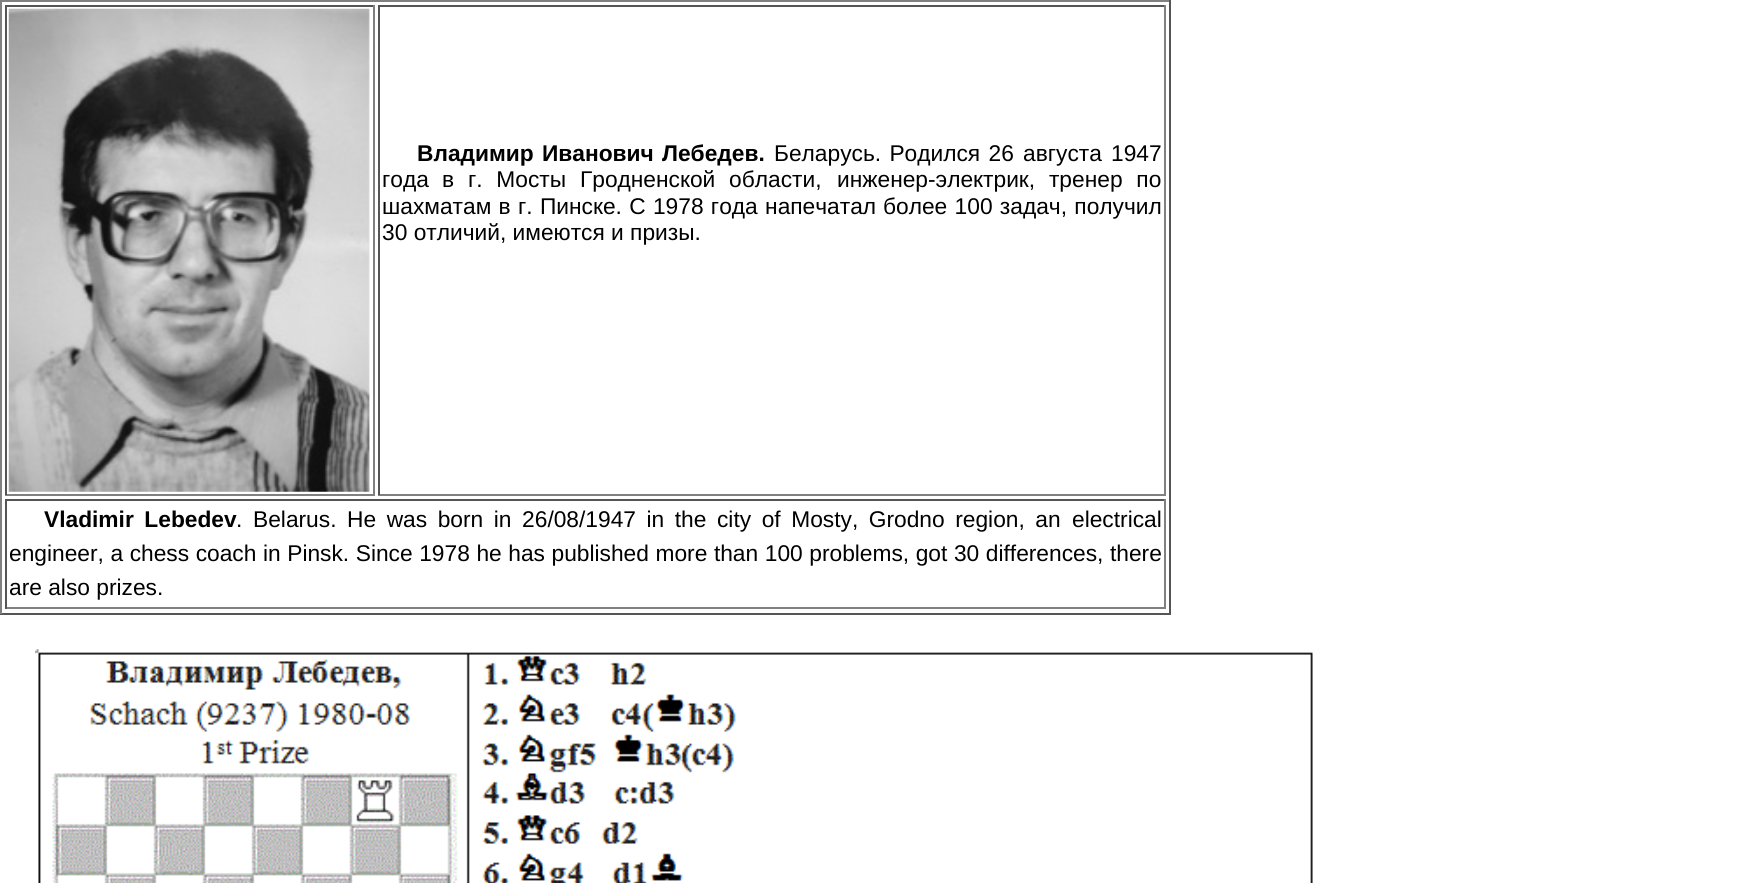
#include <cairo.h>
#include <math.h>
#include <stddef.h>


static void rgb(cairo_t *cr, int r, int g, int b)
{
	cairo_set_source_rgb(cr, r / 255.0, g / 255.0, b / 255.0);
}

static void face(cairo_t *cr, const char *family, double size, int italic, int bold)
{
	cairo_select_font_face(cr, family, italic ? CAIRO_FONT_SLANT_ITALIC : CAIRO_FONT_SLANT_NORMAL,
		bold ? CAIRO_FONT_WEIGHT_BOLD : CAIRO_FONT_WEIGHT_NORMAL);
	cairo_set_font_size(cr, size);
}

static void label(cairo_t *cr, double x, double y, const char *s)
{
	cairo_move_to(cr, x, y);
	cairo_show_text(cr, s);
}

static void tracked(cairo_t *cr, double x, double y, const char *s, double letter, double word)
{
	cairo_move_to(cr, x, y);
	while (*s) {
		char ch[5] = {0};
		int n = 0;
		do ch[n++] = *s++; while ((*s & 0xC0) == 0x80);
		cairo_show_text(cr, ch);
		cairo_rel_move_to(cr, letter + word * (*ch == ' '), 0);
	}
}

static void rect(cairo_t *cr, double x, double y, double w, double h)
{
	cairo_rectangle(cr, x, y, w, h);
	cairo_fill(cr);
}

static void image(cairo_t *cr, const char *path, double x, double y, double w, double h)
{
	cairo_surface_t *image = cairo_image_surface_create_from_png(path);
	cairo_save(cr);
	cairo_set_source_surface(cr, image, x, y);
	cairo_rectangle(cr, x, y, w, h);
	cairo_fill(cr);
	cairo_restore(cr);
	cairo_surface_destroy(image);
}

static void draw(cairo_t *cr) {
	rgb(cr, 255, 255, 255);
	cairo_paint(cr);
	rgb(cr, 128, 128, 128);
	rect(cr, 0, 0, 1171, 2);
	rgb(cr, 85, 85, 85);
	rect(cr, 1169, 0, 2, 614);
	rect(cr, 0, 613, 1171, 2);
	rgb(cr, 128, 128, 128);
	rect(cr, 0, 0, 2, 614);
	rgb(cr, 85, 85, 85);
	rect(cr, 5, 5, 370, 2);
	rgb(cr, 128, 128, 128);
	rect(cr, 373, 5, 2, 490);
	rect(cr, 5, 494, 370, 2);
	rgb(cr, 85, 85, 85);
	rect(cr, 5, 5, 2, 490);
	image(cr, "image0.png", 8, 8, 362, 484);
	rect(cr, 378, 5, 788, 2);
	rgb(cr, 128, 128, 128);
	rect(cr, 1164, 5, 2, 490);
	rect(cr, 378, 494, 788, 2);
	rgb(cr, 85, 85, 85);
	rect(cr, 378, 5, 2, 490);
	face(cr, "Liberation Sans", 22.75, 0, 1);
	rgb(cr, 0, 0, 0);
	tracked(cr, 417, 161, "Владимир Иванович", 0, 2);
	label(cr, 662, 161, "Лебедев.");
	face(cr, "Liberation Sans", 22.75, 0, 0);
	tracked(cr, 774, 161, "Беларусь. Родился 26", 0, 2);
	label(cr, 1023, 161, "августа");
	label(cr, 1111, 161, "1947");
	label(cr, 382, 187, "года");
	tracked(cr, 442, 187, "в г. Мосты Гродненской области,", 0, 7.5);
	tracked(cr, 837, 187, "инженер-электрик, тренер по", 0, 7.5);
	tracked(cr, 382, 214, "шахматам в г. Пинске. С 1978 года напечатал", 0, 1);
	tracked(cr, 883, 214, "более 100 задач, получил", 0, 1);
	label(cr, 382, 240, "30 отличий, имеются и призы.");
	rgb(cr, 85, 85, 85);
	rect(cr, 5, 499, 1161, 2);
	rgb(cr, 128, 128, 128);
	rect(cr, 1164, 499, 2, 110);
	rect(cr, 5, 607, 1161, 2);
	rgb(cr, 85, 85, 85);
	rect(cr, 5, 499, 2, 110);
	face(cr, "Liberation Sans", 22.75, 0, 1);
	rgb(cr, 0, 0, 0);
	tracked(cr, 44, 527, "Vladimir Lebedev", 0, 4.25);
	face(cr, "Liberation Sans", 22.75, 0, 0);
	label(cr, 236, 527, ".");
	tracked(cr, 253, 527, "Belarus. He was born in 26/08/1947 in the city of Mosty, Grodno region, an", 0, 4.25);
	label(cr, 1072, 527, "electrical");
	tracked(cr, 9, 561, "engineer, a chess coach in Pinsk. Since 1978 he has published more than 100 problems, got 30 differences, there", 0, 0.25);
	label(cr, 9, 595, "are also prizes.");
	image(cr, "image1.png", 35, 649, 1278, 234);
}

int main(void) {
	cairo_surface_t *surface = cairo_image_surface_create(CAIRO_FORMAT_RGB24, 1746, 883);
	cairo_t *cr = cairo_create(surface);
	cairo_font_options_t *options = cairo_font_options_create();
	cairo_font_options_set_hint_metrics(options, CAIRO_HINT_METRICS_OFF);
	cairo_font_options_set_hint_style(options, CAIRO_HINT_STYLE_NONE);
	cairo_set_font_options(cr, options);
	cairo_set_miter_limit(cr, 4);
	draw(cr);
	cairo_surface_write_to_png(surface, "render.png");
	cairo_font_options_destroy(options);
	cairo_destroy(cr);
	cairo_surface_destroy(surface);
	return 0;
}
